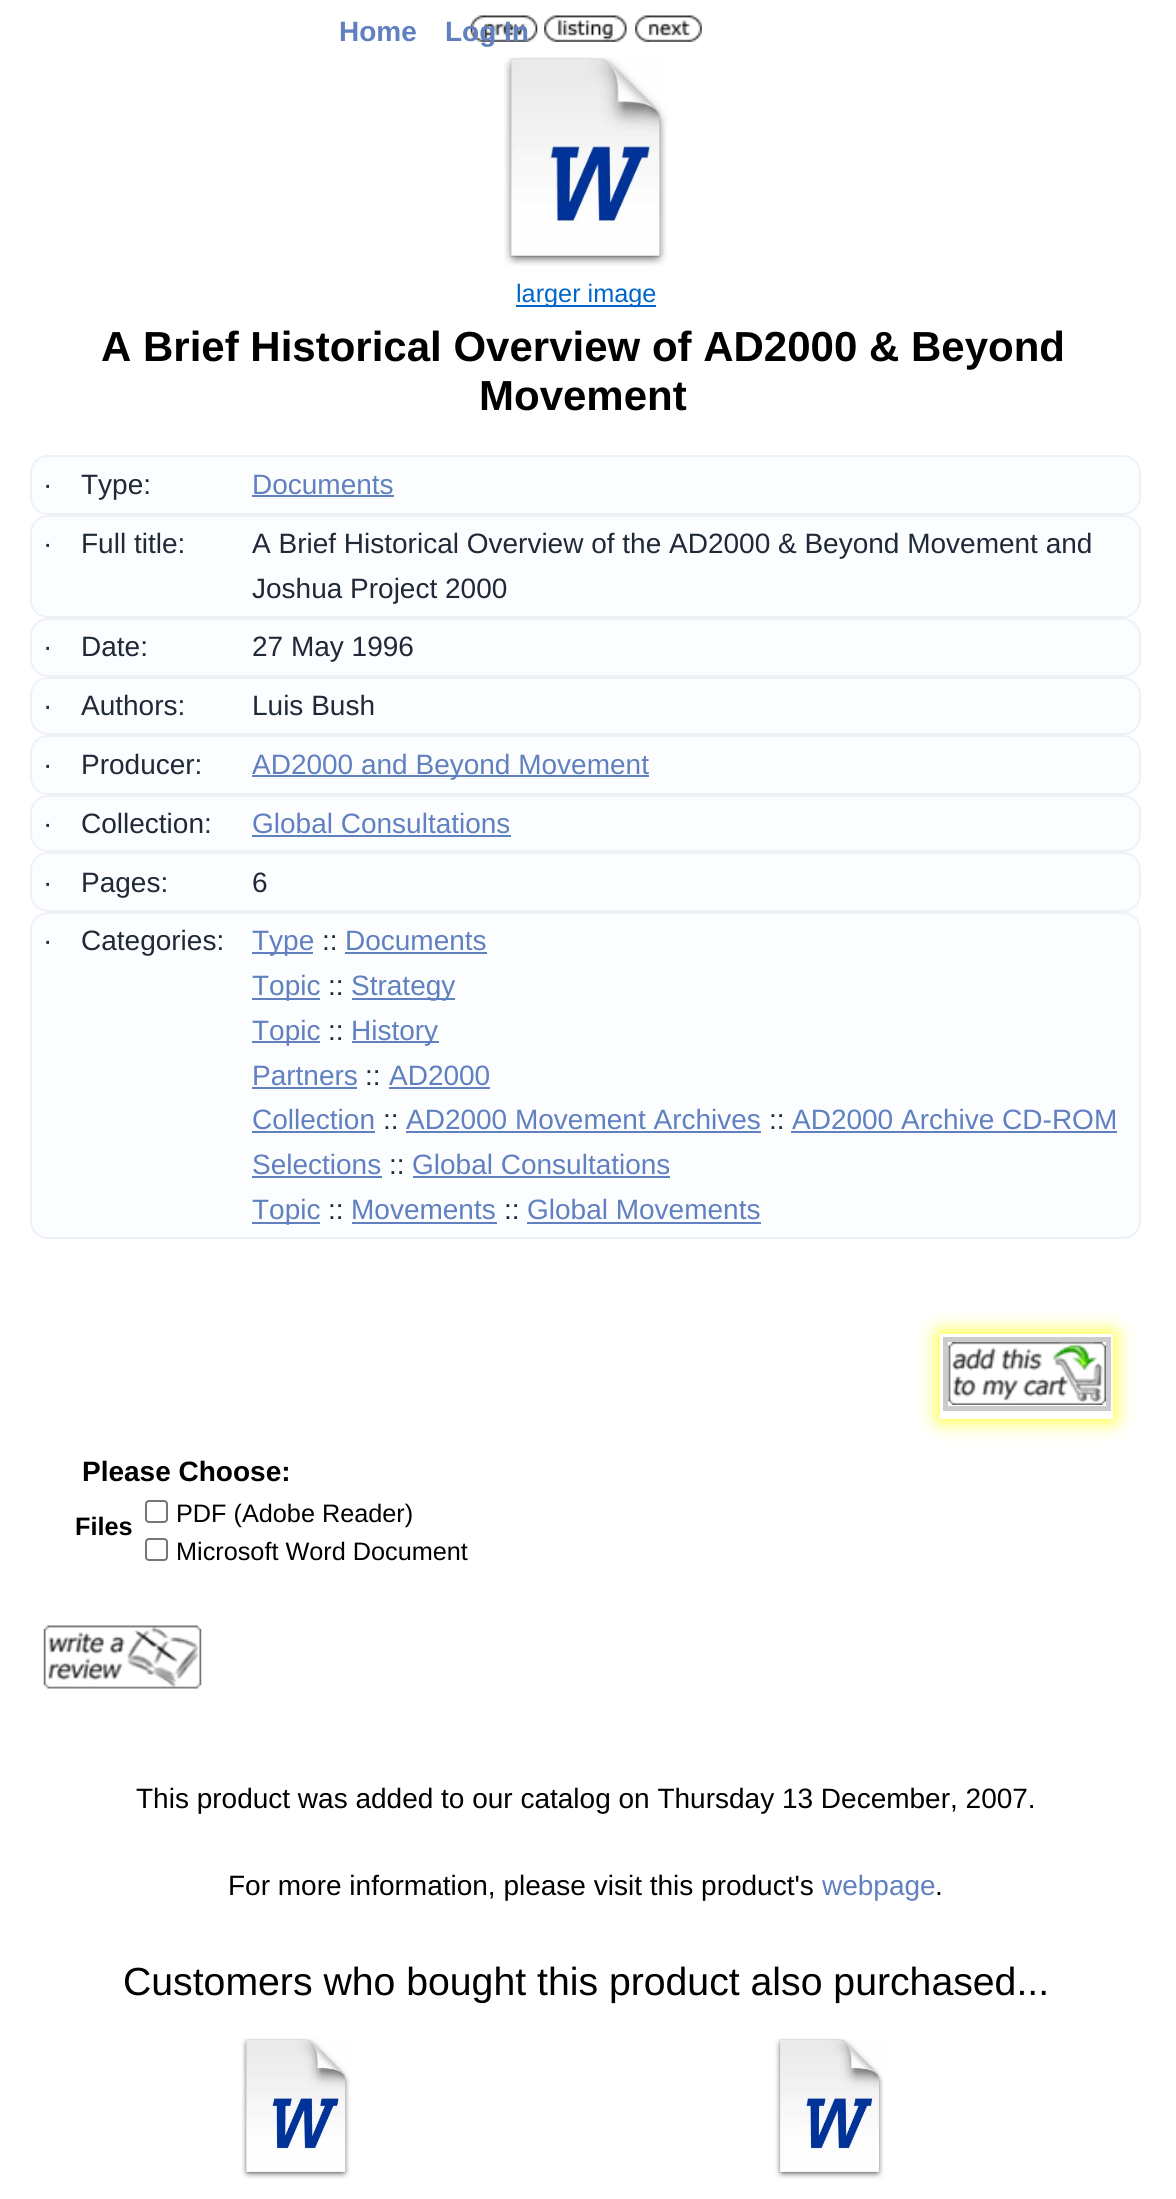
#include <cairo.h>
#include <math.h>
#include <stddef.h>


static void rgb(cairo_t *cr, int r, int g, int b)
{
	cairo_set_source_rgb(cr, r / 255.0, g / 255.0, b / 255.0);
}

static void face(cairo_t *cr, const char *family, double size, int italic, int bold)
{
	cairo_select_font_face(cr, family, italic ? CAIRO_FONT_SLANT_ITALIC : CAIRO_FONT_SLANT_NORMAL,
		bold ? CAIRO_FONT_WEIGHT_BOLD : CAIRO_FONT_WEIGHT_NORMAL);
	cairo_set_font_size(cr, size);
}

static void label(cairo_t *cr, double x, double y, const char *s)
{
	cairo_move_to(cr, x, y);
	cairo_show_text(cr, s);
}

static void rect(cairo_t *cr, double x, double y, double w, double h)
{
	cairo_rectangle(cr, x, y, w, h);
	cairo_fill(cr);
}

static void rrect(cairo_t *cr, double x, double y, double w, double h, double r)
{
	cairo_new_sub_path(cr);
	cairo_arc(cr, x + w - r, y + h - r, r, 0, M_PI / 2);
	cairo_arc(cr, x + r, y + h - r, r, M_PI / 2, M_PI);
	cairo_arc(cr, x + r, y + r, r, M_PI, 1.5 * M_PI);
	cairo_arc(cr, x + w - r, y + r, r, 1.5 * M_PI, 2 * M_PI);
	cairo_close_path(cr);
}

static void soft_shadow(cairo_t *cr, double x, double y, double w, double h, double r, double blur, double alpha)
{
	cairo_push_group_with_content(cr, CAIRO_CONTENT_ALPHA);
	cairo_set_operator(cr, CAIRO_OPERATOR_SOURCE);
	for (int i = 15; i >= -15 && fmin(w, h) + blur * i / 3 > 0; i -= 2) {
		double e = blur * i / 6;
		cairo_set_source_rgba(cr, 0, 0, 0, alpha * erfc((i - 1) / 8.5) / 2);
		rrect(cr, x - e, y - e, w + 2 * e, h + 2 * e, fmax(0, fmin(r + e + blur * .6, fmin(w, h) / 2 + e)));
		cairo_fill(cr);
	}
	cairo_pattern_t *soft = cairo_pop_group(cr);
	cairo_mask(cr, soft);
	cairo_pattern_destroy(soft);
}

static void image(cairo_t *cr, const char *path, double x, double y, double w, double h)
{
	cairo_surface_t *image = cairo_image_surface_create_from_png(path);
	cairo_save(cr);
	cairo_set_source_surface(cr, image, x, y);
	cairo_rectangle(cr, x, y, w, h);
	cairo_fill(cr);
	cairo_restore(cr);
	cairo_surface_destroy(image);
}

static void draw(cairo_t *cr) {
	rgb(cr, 255, 255, 255);
	cairo_paint(cr);
	face(cr, "Liberation Sans", 28, 0, 1);
	rgb(cr, 96, 128, 192);
	label(cr, 339, 41, "Home");
	image(cr, "image0.png", 470, 15, 68, 27);
	label(cr, 445, 41, "Log In");
	image(cr, "image1.png", 544, 15, 83, 27);
	image(cr, "image2.png", 635, 15, 67, 27);
	image(cr, "image3.png", 504, 57, 163, 209);
	rgb(cr, 0, 102, 204);
	rect(cr, 516, 305, 140, 2);
	face(cr, "Liberation Sans", 25.25, 0, 0);
	label(cr, 516, 302, "larger image");
	face(cr, "Liberation Sans", 42, 0, 1);
	rgb(cr, 0, 0, 0);
	label(cr, 101, 361, "A Brief Historical Overview of AD2000 & Beyond");
	label(cr, 479, 410, "Movement");
	rgb(cr, 252, 253, 255);
	rrect(cr, 31, 456, 1109, 58, 17);
	cairo_fill_preserve(cr);
	rgb(cr, 238, 242, 247);
	cairo_stroke(cr);
	face(cr, "Liberation Sans", 28, 0, 0);
	rgb(cr, 31, 41, 55);
	label(cr, 43, 494, "·");
	label(cr, 81, 494, "Type:");
	rgb(cr, 96, 128, 192);
	label(cr, 252, 494, "Documents");
	rect(cr, 252, 495, 142, 2);
	rgb(cr, 252, 253, 255);
	rrect(cr, 31, 516, 1109, 101, 17);
	cairo_fill_preserve(cr);
	rgb(cr, 238, 242, 247);
	cairo_stroke(cr);
	rgb(cr, 31, 41, 55);
	label(cr, 43, 553, "·");
	label(cr, 81, 553, "Full title:");
	label(cr, 252, 553, "A Brief Historical Overview of the AD2000 & Beyond Movement and");
	label(cr, 252, 598, "Joshua Project 2000");
	rgb(cr, 252, 253, 255);
	rrect(cr, 31, 619, 1109, 57, 17);
	cairo_fill_preserve(cr);
	rgb(cr, 238, 242, 247);
	cairo_stroke(cr);
	rgb(cr, 31, 41, 55);
	label(cr, 43, 656, "·");
	label(cr, 81, 656, "Date:");
	label(cr, 252, 656, "27 May 1996");
	rgb(cr, 252, 253, 255);
	rrect(cr, 31, 678, 1109, 56, 17);
	cairo_fill_preserve(cr);
	rgb(cr, 238, 242, 247);
	cairo_stroke(cr);
	rgb(cr, 31, 41, 55);
	label(cr, 43, 715, "·");
	label(cr, 81, 715, "Authors:");
	label(cr, 252, 715, "Luis Bush");
	rgb(cr, 252, 253, 255);
	rrect(cr, 31, 736, 1109, 58, 17);
	cairo_fill_preserve(cr);
	rgb(cr, 238, 242, 247);
	cairo_stroke(cr);
	rgb(cr, 31, 41, 55);
	label(cr, 43, 774, "·");
	label(cr, 81, 774, "Producer:");
	rgb(cr, 96, 128, 192);
	rect(cr, 252, 775, 397, 2);
	label(cr, 252, 774, "AD2000 and Beyond Movement");
	rgb(cr, 252, 253, 255);
	rrect(cr, 31, 796, 1109, 55, 17);
	cairo_fill_preserve(cr);
	rgb(cr, 238, 242, 247);
	cairo_stroke(cr);
	rgb(cr, 31, 41, 55);
	label(cr, 43, 833, "·");
	label(cr, 81, 833, "Collection:");
	rgb(cr, 96, 128, 192);
	label(cr, 252, 833, "Global Consultations");
	rect(cr, 252, 835, 259, 2);
	rgb(cr, 252, 253, 255);
	rrect(cr, 31, 853, 1109, 58, 17);
	cairo_fill_preserve(cr);
	rgb(cr, 238, 242, 247);
	cairo_stroke(cr);
	rgb(cr, 31, 41, 55);
	label(cr, 43, 892, "·");
	label(cr, 81, 892, "Pages:");
	label(cr, 252, 892, "6");
	rgb(cr, 252, 253, 255);
	rrect(cr, 31, 913, 1109, 325, 17);
	cairo_fill_preserve(cr);
	rgb(cr, 238, 242, 247);
	cairo_stroke(cr);
	rgb(cr, 31, 41, 55);
	label(cr, 43, 950, "·");
	label(cr, 81, 950, "Categories:");
	rgb(cr, 96, 128, 192);
	rect(cr, 252, 952, 61, 2);
	label(cr, 252, 950, "Type");
	rgb(cr, 31, 41, 55);
	label(cr, 322, 950, "::");
	rgb(cr, 96, 128, 192);
	label(cr, 345, 950, "Documents");
	rect(cr, 345, 952, 142, 2);
	rect(cr, 252, 998, 68, 2);
	label(cr, 252, 995, "Topic");
	rgb(cr, 31, 41, 55);
	label(cr, 328, 995, "::");
	rgb(cr, 96, 128, 192);
	rect(cr, 352, 998, 103, 2);
	label(cr, 351, 995, "Strategy");
	rect(cr, 252, 1041, 68, 2);
	label(cr, 252, 1040, "Topic");
	rgb(cr, 31, 41, 55);
	label(cr, 328, 1040, "::");
	rgb(cr, 96, 128, 192);
	rect(cr, 352, 1041, 87, 2);
	label(cr, 351, 1040, "History");
	label(cr, 252, 1085, "Partners");
	rect(cr, 252, 1087, 105, 2);
	rgb(cr, 31, 41, 55);
	label(cr, 365, 1085, "::");
	rgb(cr, 96, 128, 192);
	label(cr, 389, 1085, "AD2000");
	rect(cr, 389, 1087, 101, 2);
	label(cr, 252, 1129, "Collection");
	rect(cr, 252, 1131, 123, 2);
	rgb(cr, 31, 41, 55);
	label(cr, 383, 1129, "::");
	rgb(cr, 96, 128, 192);
	label(cr, 406, 1129, "AD2000 Movement Archives");
	rect(cr, 406, 1131, 355, 2);
	rgb(cr, 31, 41, 55);
	label(cr, 769, 1129, "::");
	rgb(cr, 96, 128, 192);
	label(cr, 792, 1129, "AD2000 Archive CD-ROM");
	rect(cr, 791, 1131, 326, 2);
	label(cr, 252, 1174, "Selections");
	rect(cr, 252, 1176, 130, 2);
	rgb(cr, 31, 41, 55);
	label(cr, 389, 1174, "::");
	rgb(cr, 96, 128, 192);
	label(cr, 412, 1174, "Global Consultations");
	rect(cr, 413, 1176, 257, 2);
	rect(cr, 252, 1222, 68, 2);
	label(cr, 252, 1219, "Topic");
	rgb(cr, 31, 41, 55);
	label(cr, 328, 1219, "::");
	rgb(cr, 96, 128, 192);
	label(cr, 351, 1219, "Movements");
	rect(cr, 352, 1222, 145, 2);
	rgb(cr, 31, 41, 55);
	label(cr, 504, 1219, "::");
	rgb(cr, 96, 128, 192);
	label(cr, 527, 1219, "Global Movements");
	rect(cr, 527, 1222, 234, 2);
	cairo_save(cr);
	cairo_set_fill_rule(cr, CAIRO_FILL_RULE_EVEN_ODD);
	cairo_new_path(cr);
	cairo_move_to(cr, 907, 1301);
	cairo_line_to(cr, 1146, 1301);
	cairo_line_to(cr, 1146, 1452);
	cairo_line_to(cr, 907, 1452);
	cairo_close_path(cr);
	cairo_move_to(cr, 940, 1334);
	cairo_line_to(cr, 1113, 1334);
	cairo_line_to(cr, 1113, 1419);
	cairo_line_to(cr, 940, 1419);
	cairo_close_path(cr);
	cairo_clip(cr);
	rgb(cr, 255, 255, 0);
	soft_shadow(cr, 940, 1334, 173, 85, 0, 10.5, 1);
	cairo_restore(cr);
	cairo_rectangle(cr, 945.5, 1339.5, 163, 69);
	rgb(cr, 204, 204, 204);
	cairo_set_line_width(cr, 5);
	cairo_stroke(cr);
	image(cr, "image4.png", 948, 1342, 158, 63);
	face(cr, "Liberation Sans", 28, 0, 1);
	rgb(cr, 0, 0, 0);
	label(cr, 82, 1481, "Please Choose:");
	face(cr, "Liberation Sans", 25.25, 0, 1);
	label(cr, 75, 1535, "Files");
	rrect(cr, 146, 1501, 21, 21, 3);
	rgb(cr, 118, 118, 118);
	cairo_set_line_width(cr, 2);
	cairo_stroke(cr);
	face(cr, "Liberation Sans", 25.25, 0, 0);
	rgb(cr, 0, 0, 0);
	label(cr, 176, 1522, "PDF (Adobe Reader)");
	rrect(cr, 146, 1539, 21, 21, 3);
	rgb(cr, 118, 118, 118);
	cairo_stroke(cr);
	rgb(cr, 0, 0, 0);
	label(cr, 176, 1560, "Microsoft Word Document");
	image(cr, "image5.png", 43, 1625, 159, 64);
	face(cr, "Liberation Sans", 28, 0, 0);
	label(cr, 136, 1808, "This product was added to our catalog on Thursday 13 December, 2007.");
	label(cr, 228, 1895, "For more information, please visit this product's");
	rgb(cr, 96, 128, 192);
	label(cr, 822, 1895, "webpage");
	rgb(cr, 0, 0, 0);
	label(cr, 935, 1895, ".");
	face(cr, "Liberation Sans", 39.2, 0, 0);
	label(cr, 123, 1995, "Customers who bought this product also purchased...");
	image(cr, "image6.png", 242, 2038, 108, 141);
	image(cr, "image7.png", 775, 2038, 109, 141);
}

int main(void) {
	cairo_surface_t *surface = cairo_image_surface_create(CAIRO_FORMAT_RGB24, 1176, 2199);
	cairo_t *cr = cairo_create(surface);
	cairo_font_options_t *options = cairo_font_options_create();
	cairo_font_options_set_hint_metrics(options, CAIRO_HINT_METRICS_OFF);
	cairo_font_options_set_hint_style(options, CAIRO_HINT_STYLE_NONE);
	cairo_set_font_options(cr, options);
	cairo_set_miter_limit(cr, 4);
	draw(cr);
	cairo_surface_write_to_png(surface, "render.png");
	cairo_font_options_destroy(options);
	cairo_destroy(cr);
	cairo_surface_destroy(surface);
	return 0;
}
